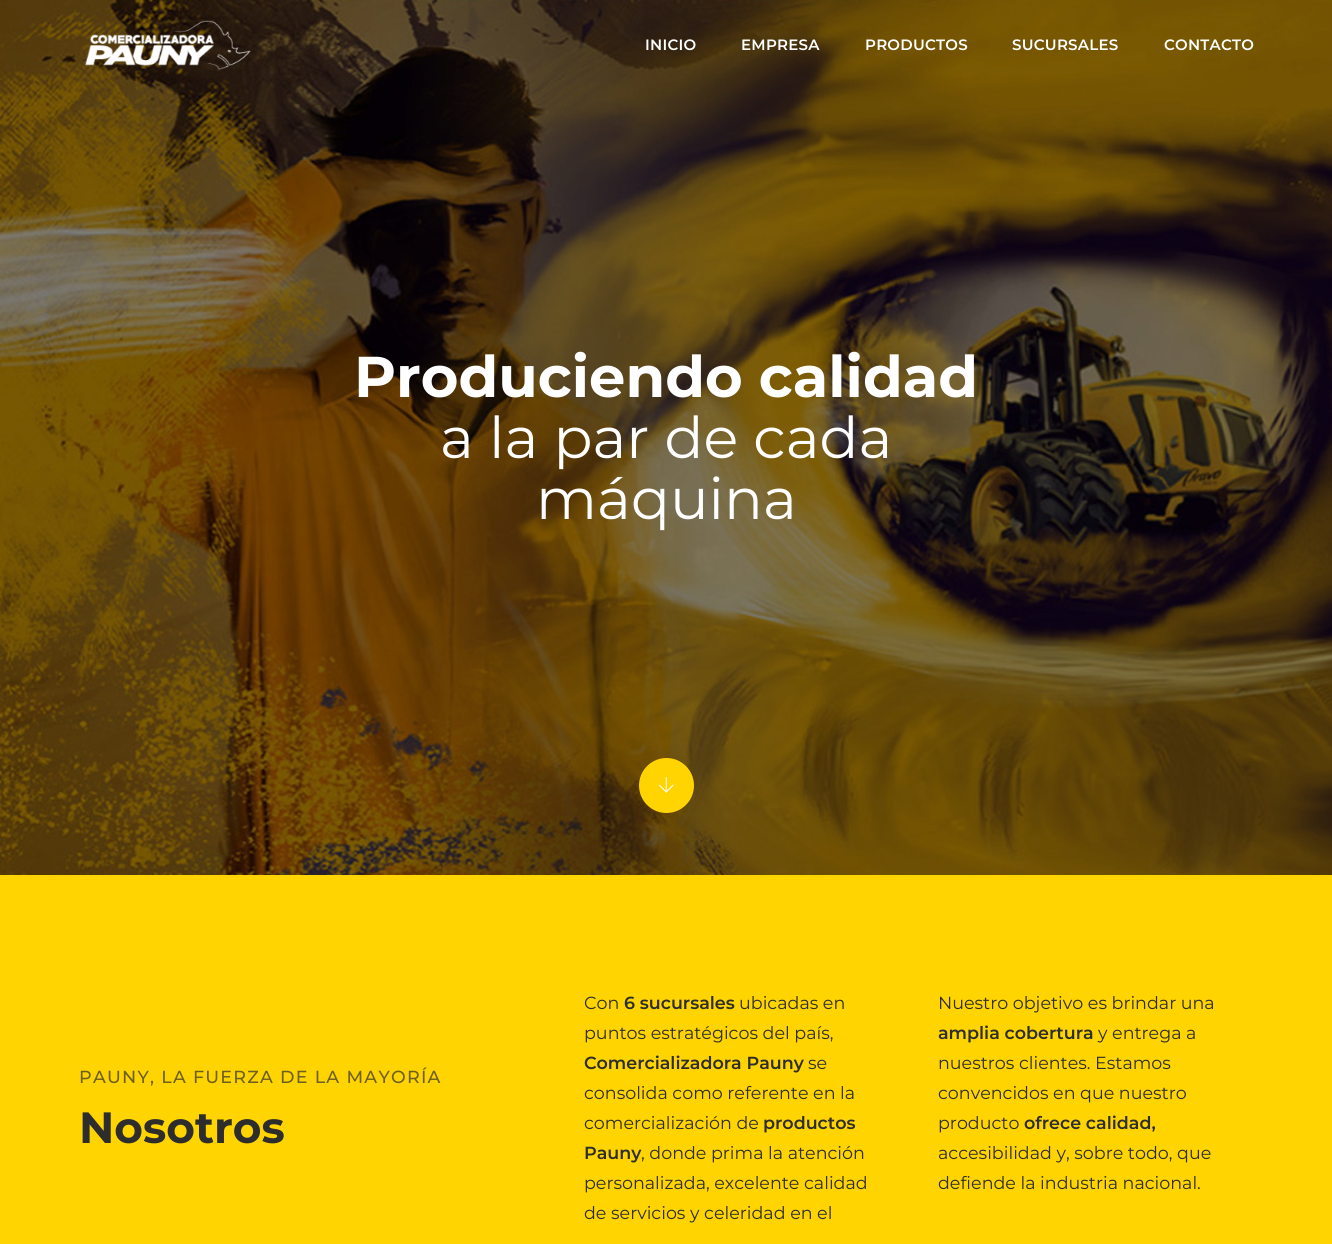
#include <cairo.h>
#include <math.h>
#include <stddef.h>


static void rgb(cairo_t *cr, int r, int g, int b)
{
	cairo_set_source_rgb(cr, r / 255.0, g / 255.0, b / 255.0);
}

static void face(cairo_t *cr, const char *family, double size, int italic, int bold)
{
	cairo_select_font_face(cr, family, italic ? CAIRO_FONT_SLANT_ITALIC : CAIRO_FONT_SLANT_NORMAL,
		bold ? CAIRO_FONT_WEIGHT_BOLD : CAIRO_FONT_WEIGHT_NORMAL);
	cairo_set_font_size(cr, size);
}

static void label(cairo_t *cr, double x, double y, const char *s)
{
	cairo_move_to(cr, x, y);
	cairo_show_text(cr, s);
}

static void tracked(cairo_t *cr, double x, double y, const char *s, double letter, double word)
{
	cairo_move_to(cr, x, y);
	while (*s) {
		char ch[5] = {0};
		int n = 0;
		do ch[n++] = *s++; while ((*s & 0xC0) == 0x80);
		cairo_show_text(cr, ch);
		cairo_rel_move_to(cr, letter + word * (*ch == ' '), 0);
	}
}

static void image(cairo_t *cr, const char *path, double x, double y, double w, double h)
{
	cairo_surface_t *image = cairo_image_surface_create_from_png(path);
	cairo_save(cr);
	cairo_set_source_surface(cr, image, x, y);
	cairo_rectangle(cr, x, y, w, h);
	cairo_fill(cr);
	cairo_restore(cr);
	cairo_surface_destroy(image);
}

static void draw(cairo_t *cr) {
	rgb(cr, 255, 212, 0);
	cairo_paint(cr);
	image(cr, "image1.png", 0, 0, 1332, 875);
	image(cr, "image0.png", 85, 20, 166, 50);
	face(cr, "Montserrat SemiBold", 15, 0, 0);
	rgb(cr, 255, 255, 255);
	tracked(cr, 645, 50, "INICIO", 0.25, 0);
	tracked(cr, 741, 50, "EMPRESA", 0.25, 0);
	tracked(cr, 865, 50, "PRODUCTOS", 0.25, 0);
	tracked(cr, 1012, 50, "SUCURSALES", 0.25, 0);
	tracked(cr, 1164, 50, "CONTACTO", 0.25, 0);
	face(cr, "Montserrat", 57.5, 0, 1);
	label(cr, 354, 397, "Produciendo calidad");
	face(cr, "Montserrat", 57.5, 0, 0);
	label(cr, 440, 458, "a la par de cada");
	label(cr, 536, 519, "máquina");
	rgb(cr, 255, 212, 0);
	cairo_new_path(cr);
	cairo_arc(cr, 666.5, 785.5, 27.5, 0, 2 * M_PI);
	cairo_fill(cr);
	image(cr, "image2.png", 658, 777, 16, 16);
	face(cr, "Montserrat Medium", 17.5, 0, 0);
	rgb(cr, 108, 95, 32);
	tracked(cr, 79, 1083, "PAUNY, LA FUERZA DE LA MAYORÍA", 1.25, 0);
	face(cr, "Montserrat", 43.75, 0, 1);
	rgb(cr, 45, 45, 45);
	label(cr, 79, 1143, "Nosotros");
	face(cr, "Montserrat", 17.5, 0, 0);
	label(cr, 584, 1009, "Con");
	face(cr, "Montserrat SemiBold", 17.5, 0, 0);
	label(cr, 624, 1009, "6 sucursales");
	face(cr, "Montserrat", 17.5, 0, 0);
	label(cr, 739, 1009, "ubicadas en");
	label(cr, 584, 1039, "puntos estratégicos del país,");
	face(cr, "Montserrat SemiBold", 17.5, 0, 0);
	label(cr, 584, 1069, "Comercializadora Pauny");
	face(cr, "Montserrat", 17.5, 0, 0);
	label(cr, 808, 1069, "se");
	label(cr, 584, 1099, "consolida como referente en la");
	label(cr, 584, 1129, "comercialización de");
	face(cr, "Montserrat SemiBold", 17.5, 0, 0);
	label(cr, 763, 1129, "productos");
	label(cr, 584, 1159, "Pauny");
	face(cr, "Montserrat", 17.5, 0, 0);
	label(cr, 641, 1159, ", donde prima la atención");
	label(cr, 584, 1189, "personalizada, excelente calidad");
	label(cr, 584, 1219, "de servicios y celeridad en el");
	label(cr, 938, 1009, "Nuestro objetivo es brindar una");
	face(cr, "Montserrat SemiBold", 17.5, 0, 0);
	label(cr, 938, 1039, "amplia cobertura");
	face(cr, "Montserrat", 17.5, 0, 0);
	label(cr, 1098, 1039, "y entrega a");
	label(cr, 938, 1069, "nuestros clientes. Estamos");
	label(cr, 938, 1099, "convencidos en que nuestro");
	label(cr, 938, 1129, "producto");
	face(cr, "Montserrat SemiBold", 17.5, 0, 0);
	label(cr, 1024, 1129, "ofrece calidad,");
	face(cr, "Montserrat", 17.5, 0, 0);
	label(cr, 938, 1159, "accesibilidad y, sobre todo, que");
	label(cr, 938, 1189, "defiende la industria nacional.");
}

int main(void) {
	cairo_surface_t *surface = cairo_image_surface_create(CAIRO_FORMAT_RGB24, 1332, 1244);
	cairo_t *cr = cairo_create(surface);
	cairo_font_options_t *options = cairo_font_options_create();
	cairo_font_options_set_hint_metrics(options, CAIRO_HINT_METRICS_OFF);
	cairo_font_options_set_hint_style(options, CAIRO_HINT_STYLE_NONE);
	cairo_set_font_options(cr, options);
	cairo_set_miter_limit(cr, 4);
	draw(cr);
	cairo_surface_write_to_png(surface, "render.png");
	cairo_font_options_destroy(options);
	cairo_destroy(cr);
	cairo_surface_destroy(surface);
	return 0;
}
